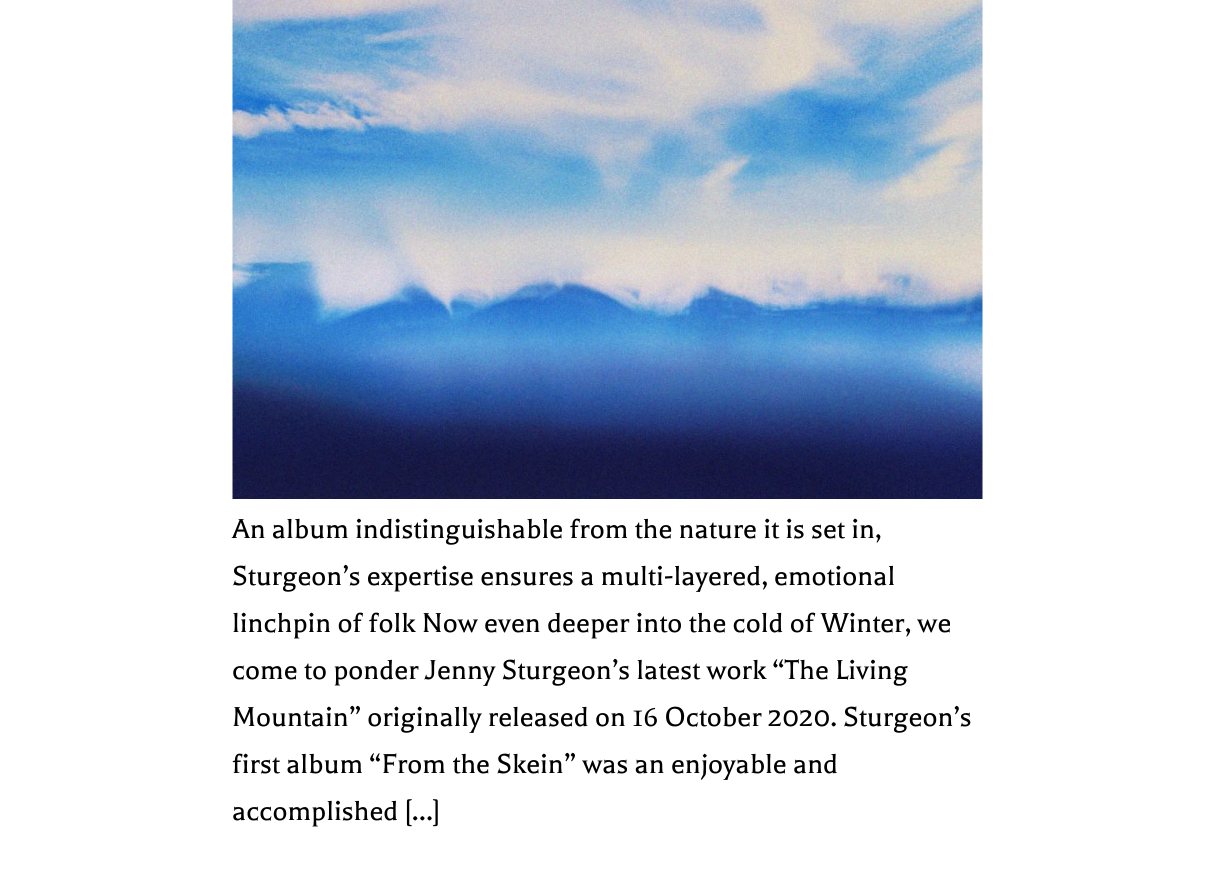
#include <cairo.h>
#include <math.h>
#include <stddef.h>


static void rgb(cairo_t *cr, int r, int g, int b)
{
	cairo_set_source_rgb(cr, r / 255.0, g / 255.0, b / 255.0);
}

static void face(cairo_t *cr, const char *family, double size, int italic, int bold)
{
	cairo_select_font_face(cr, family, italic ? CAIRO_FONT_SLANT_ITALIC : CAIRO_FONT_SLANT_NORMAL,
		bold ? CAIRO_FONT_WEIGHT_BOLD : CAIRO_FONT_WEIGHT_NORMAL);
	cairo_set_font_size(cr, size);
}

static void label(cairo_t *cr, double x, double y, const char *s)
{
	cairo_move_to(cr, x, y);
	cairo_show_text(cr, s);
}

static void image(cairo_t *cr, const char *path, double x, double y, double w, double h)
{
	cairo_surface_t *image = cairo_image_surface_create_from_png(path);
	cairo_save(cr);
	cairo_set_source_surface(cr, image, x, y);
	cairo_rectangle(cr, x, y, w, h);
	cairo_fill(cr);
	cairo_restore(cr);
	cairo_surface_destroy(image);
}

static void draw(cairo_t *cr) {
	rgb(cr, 255, 255, 255);
	cairo_paint(cr);
	image(cr, "image0.png", 232, 0, 751, 499);
	face(cr, "Balthazar", 31.25, 0, 0);
	rgb(cr, 0, 0, 0);
	label(cr, 232, 538, "An album indistinguishable from the nature it is set in,");
	label(cr, 232, 585, "Sturgeon’s expertise ensures a multi-layered, emotional");
	label(cr, 232, 632, "linchpin of folk Now even deeper into the cold of Winter, we");
	label(cr, 232, 679, "come to ponder Jenny Sturgeon’s latest work “The Living");
	label(cr, 232, 726, "Mountain” originally released on 16 October 2020. Sturgeon’s");
	label(cr, 232, 773, "first album “From the Skein” was an enjoyable and");
	label(cr, 232, 820, "accomplished […]");
}

int main(void) {
	cairo_surface_t *surface = cairo_image_surface_create(CAIRO_FORMAT_RGB24, 1213, 890);
	cairo_t *cr = cairo_create(surface);
	cairo_font_options_t *options = cairo_font_options_create();
	cairo_font_options_set_hint_metrics(options, CAIRO_HINT_METRICS_OFF);
	cairo_font_options_set_hint_style(options, CAIRO_HINT_STYLE_NONE);
	cairo_set_font_options(cr, options);
	cairo_set_miter_limit(cr, 4);
	draw(cr);
	cairo_surface_write_to_png(surface, "render.png");
	cairo_font_options_destroy(options);
	cairo_destroy(cr);
	cairo_surface_destroy(surface);
	return 0;
}
